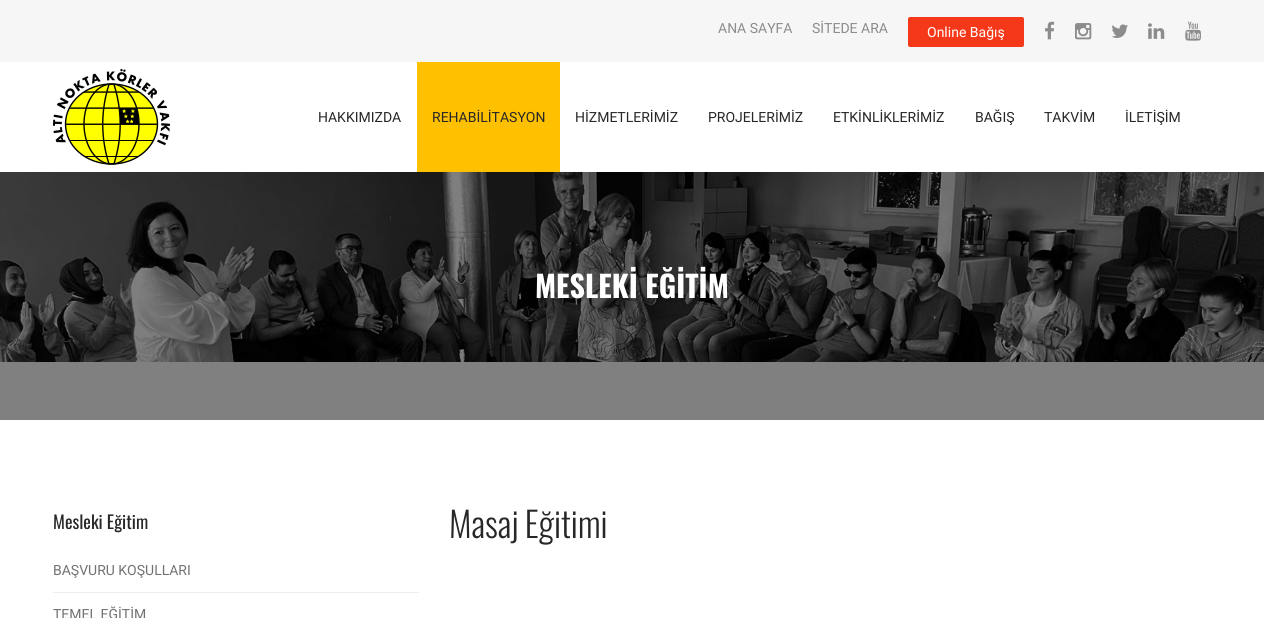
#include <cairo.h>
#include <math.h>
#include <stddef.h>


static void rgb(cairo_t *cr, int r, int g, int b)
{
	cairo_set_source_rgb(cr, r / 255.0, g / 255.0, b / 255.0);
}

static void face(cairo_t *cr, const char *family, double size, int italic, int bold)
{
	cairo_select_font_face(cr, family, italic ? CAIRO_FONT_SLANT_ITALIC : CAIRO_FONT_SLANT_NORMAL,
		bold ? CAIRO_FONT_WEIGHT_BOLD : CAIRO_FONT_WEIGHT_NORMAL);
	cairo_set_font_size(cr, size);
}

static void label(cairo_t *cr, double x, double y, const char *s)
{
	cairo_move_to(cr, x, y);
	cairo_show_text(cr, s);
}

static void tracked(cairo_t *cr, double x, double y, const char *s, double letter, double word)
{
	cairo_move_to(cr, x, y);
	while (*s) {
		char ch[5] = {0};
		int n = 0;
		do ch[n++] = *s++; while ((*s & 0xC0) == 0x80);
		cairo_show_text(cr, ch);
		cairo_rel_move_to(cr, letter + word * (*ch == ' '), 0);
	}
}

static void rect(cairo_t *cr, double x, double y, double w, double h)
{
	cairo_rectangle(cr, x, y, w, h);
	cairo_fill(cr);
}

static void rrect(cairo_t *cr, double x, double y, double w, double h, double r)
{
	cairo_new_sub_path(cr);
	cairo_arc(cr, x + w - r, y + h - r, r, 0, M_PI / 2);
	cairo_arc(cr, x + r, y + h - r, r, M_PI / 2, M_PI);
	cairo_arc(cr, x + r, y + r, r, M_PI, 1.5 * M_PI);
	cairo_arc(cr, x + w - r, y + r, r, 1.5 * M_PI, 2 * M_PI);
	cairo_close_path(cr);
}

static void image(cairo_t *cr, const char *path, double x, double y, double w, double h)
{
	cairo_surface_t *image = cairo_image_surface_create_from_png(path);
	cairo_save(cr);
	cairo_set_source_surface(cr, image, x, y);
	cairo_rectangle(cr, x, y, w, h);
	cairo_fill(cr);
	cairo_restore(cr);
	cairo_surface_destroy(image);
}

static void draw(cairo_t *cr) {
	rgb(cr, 255, 255, 255);
	cairo_paint(cr);
	rgb(cr, 128, 128, 128);
	rect(cr, 0, 362, 1264, 58);
	rgb(cr, 246, 246, 246);
	rect(cr, 0, 0, 1264, 62);
	face(cr, "Roboto", 14, 0, 0);
	rgb(cr, 141, 140, 140);
	label(cr, 718, 33, "ANA SAYFA");
	label(cr, 812, 33, "SİTEDE ARA");
	rgb(cr, 244, 56, 25);
	rrect(cr, 908, 17, 116, 30, 2);
	cairo_fill(cr);
	rgb(cr, 255, 255, 255);
	label(cr, 927, 37, "Online Bağış");
	image(cr, "image0.png", 1045, 21, 10, 19);
	image(cr, "image1.png", 1075, 23, 17, 17);
	image(cr, "image2.png", 1111, 24, 17, 14);
	image(cr, "image3.png", 1148, 23, 17, 16);
	image(cr, "image4.png", 1185, 21, 16, 20);
	image(cr, "image5.png", 53, 69, 117, 96);
	rgb(cr, 39, 39, 39);
	label(cr, 318, 122, "HAKKIMIZDA");
	rgb(cr, 255, 192, 0);
	rect(cr, 417, 62, 143, 110);
	rgb(cr, 39, 39, 39);
	label(cr, 432, 122, "REHABİLİTASYON");
	label(cr, 575, 122, "HİZMETLERİMİZ");
	label(cr, 708, 122, "PROJELERİMİZ");
	label(cr, 833, 122, "ETKİNLİKLERİMİZ");
	label(cr, 975, 122, "BAĞIŞ");
	label(cr, 1044, 122, "TAKVİM");
	label(cr, 1125, 122, "İLETİŞİM");
	image(cr, "image6.png", 0, 172, 1264, 190);
	face(cr, "Oswald", 30, 0, 1);
	rgb(cr, 255, 255, 255);
	label(cr, 535, 298, "MESLEKİ EĞİTİM");
	face(cr, "Oswald", 18, 0, 0);
	rgb(cr, 39, 39, 39);
	label(cr, 53, 529, "Mesleki Eğitim");
	rgb(cr, 238, 238, 238);
	rect(cr, 53, 592, 366, 1);
	face(cr, "Roboto", 14, 0, 0);
	rgb(cr, 114, 114, 114);
	label(cr, 53, 575, "BAŞVURU KOŞULLARI");
	label(cr, 53, 619, "TEMEL EĞİTİM");
	face(cr, "Oswald Light", 35, 0, 0);
	rgb(cr, 39, 39, 39);
	tracked(cr, 449, 538, "Masaj Eğitimi", 0, -1);
}

int main(void) {
	cairo_surface_t *surface = cairo_image_surface_create(CAIRO_FORMAT_RGB24, 1264, 618);
	cairo_t *cr = cairo_create(surface);
	cairo_font_options_t *options = cairo_font_options_create();
	cairo_font_options_set_hint_metrics(options, CAIRO_HINT_METRICS_OFF);
	cairo_font_options_set_hint_style(options, CAIRO_HINT_STYLE_NONE);
	cairo_set_font_options(cr, options);
	cairo_set_miter_limit(cr, 4);
	draw(cr);
	cairo_surface_write_to_png(surface, "render.png");
	cairo_font_options_destroy(options);
	cairo_destroy(cr);
	cairo_surface_destroy(surface);
	return 0;
}
